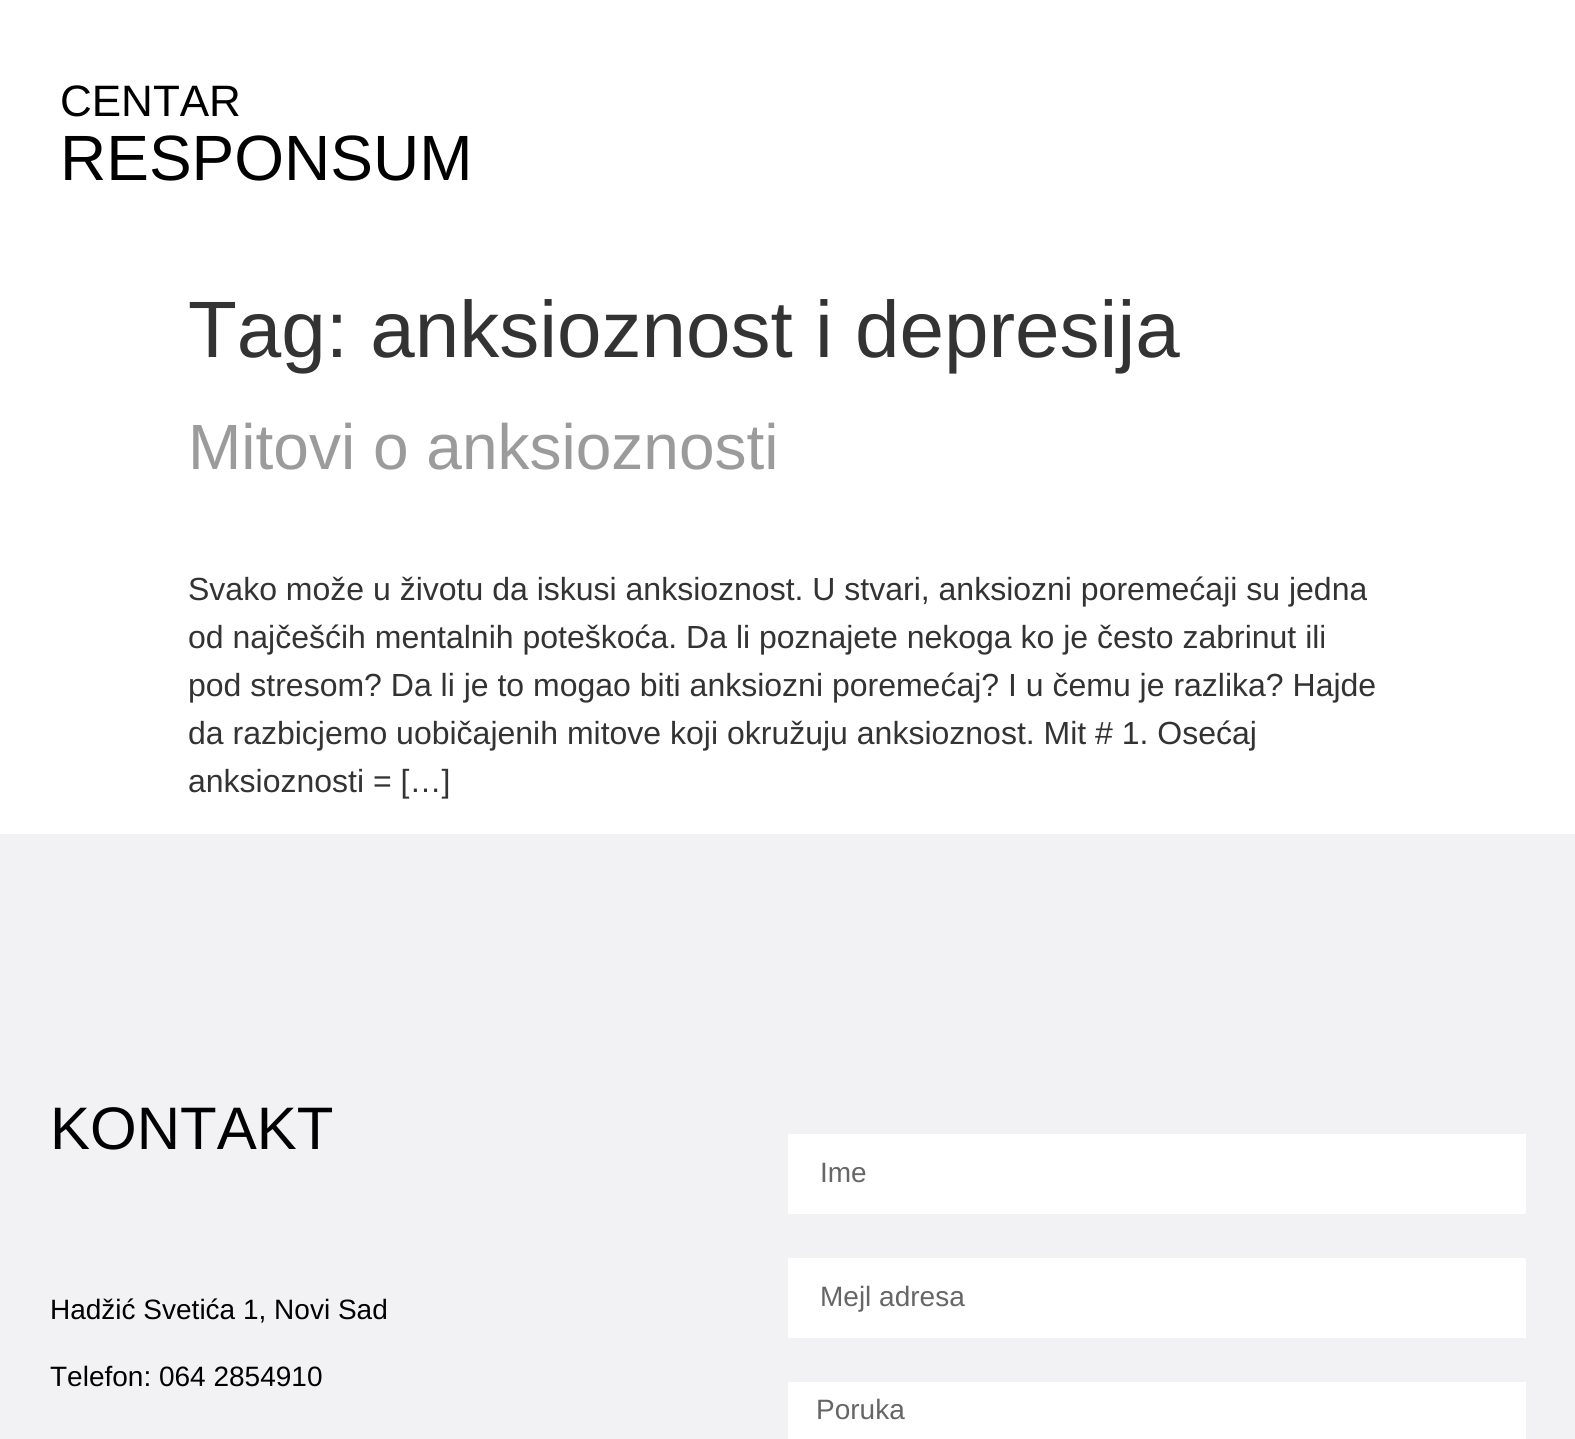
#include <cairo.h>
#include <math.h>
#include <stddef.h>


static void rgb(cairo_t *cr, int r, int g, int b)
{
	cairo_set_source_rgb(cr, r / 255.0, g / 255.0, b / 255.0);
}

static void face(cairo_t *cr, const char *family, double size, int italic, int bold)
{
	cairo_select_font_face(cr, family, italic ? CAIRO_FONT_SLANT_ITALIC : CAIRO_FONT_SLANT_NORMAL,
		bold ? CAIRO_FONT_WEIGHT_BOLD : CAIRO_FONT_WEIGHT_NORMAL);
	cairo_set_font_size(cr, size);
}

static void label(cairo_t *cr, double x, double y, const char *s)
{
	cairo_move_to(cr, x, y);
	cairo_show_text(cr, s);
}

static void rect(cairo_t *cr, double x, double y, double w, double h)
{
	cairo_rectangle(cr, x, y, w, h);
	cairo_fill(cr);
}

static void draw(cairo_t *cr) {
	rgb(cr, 255, 255, 255);
	cairo_paint(cr);
	face(cr, "Liberation Sans", 44, 0, 0);
	rgb(cr, 0, 0, 0);
	label(cr, 60, 116, "CENTAR");
	face(cr, "Liberation Sans", 64, 0, 0);
	label(cr, 60, 180, "RESPONSUM");
	face(cr, "Liberation Sans", 80, 0, 0);
	rgb(cr, 51, 51, 51);
	label(cr, 188, 357, "Tag: anksioznost i depresija");
	face(cr, "Liberation Sans", 64, 0, 0);
	rgb(cr, 155, 155, 155);
	label(cr, 188, 469, "Mitovi o anksioznosti");
	face(cr, "Liberation Sans", 32, 0, 0);
	rgb(cr, 51, 51, 51);
	label(cr, 188, 600, "Svako može u životu da iskusi anksioznost. U stvari, anksiozni poremećaji su jedna");
	label(cr, 188, 648, "od najčešćih mentalnih poteškoća. Da li poznajete nekoga ko je često zabrinut ili");
	label(cr, 188, 696, "pod stresom? Da li je to mogao biti anksiozni poremećaj? I u čemu je razlika? Hajde");
	label(cr, 188, 744, "da razbicjemo uobičajenih mitove koji okružuju anksioznost. Mit # 1. Osećaj");
	label(cr, 188, 792, "anksioznosti = […]");
	rgb(cr, 242, 242, 244);
	rect(cr, 0, 834, 1575, 605);
	face(cr, "Liberation Sans", 60, 0, 0);
	rgb(cr, 0, 0, 0);
	label(cr, 50, 1149, "KONTAKT");
	face(cr, "Liberation Sans", 28, 0, 0);
	label(cr, 50, 1319, "Hadžić Svetića 1, Novi Sad");
	label(cr, 50, 1386, "Telefon: 064 2854910");
	rgb(cr, 255, 255, 255);
	rect(cr, 788, 1134, 738, 80);
	rgb(cr, 102, 102, 102);
	label(cr, 820, 1182, "Ime");
	rgb(cr, 255, 255, 255);
	rect(cr, 788, 1258, 738, 80);
	rgb(cr, 102, 102, 102);
	label(cr, 820, 1306, "Mejl adresa");
	rgb(cr, 255, 255, 255);
	rect(cr, 788, 1382, 738, 57);
	rgb(cr, 102, 102, 102);
	label(cr, 816, 1419, "Poruka");
}

int main(void) {
	cairo_surface_t *surface = cairo_image_surface_create(CAIRO_FORMAT_RGB24, 1575, 1439);
	cairo_t *cr = cairo_create(surface);
	cairo_font_options_t *options = cairo_font_options_create();
	cairo_font_options_set_hint_metrics(options, CAIRO_HINT_METRICS_OFF);
	cairo_font_options_set_hint_style(options, CAIRO_HINT_STYLE_NONE);
	cairo_set_font_options(cr, options);
	cairo_set_miter_limit(cr, 4);
	draw(cr);
	cairo_surface_write_to_png(surface, "render.png");
	cairo_font_options_destroy(options);
	cairo_destroy(cr);
	cairo_surface_destroy(surface);
	return 0;
}
